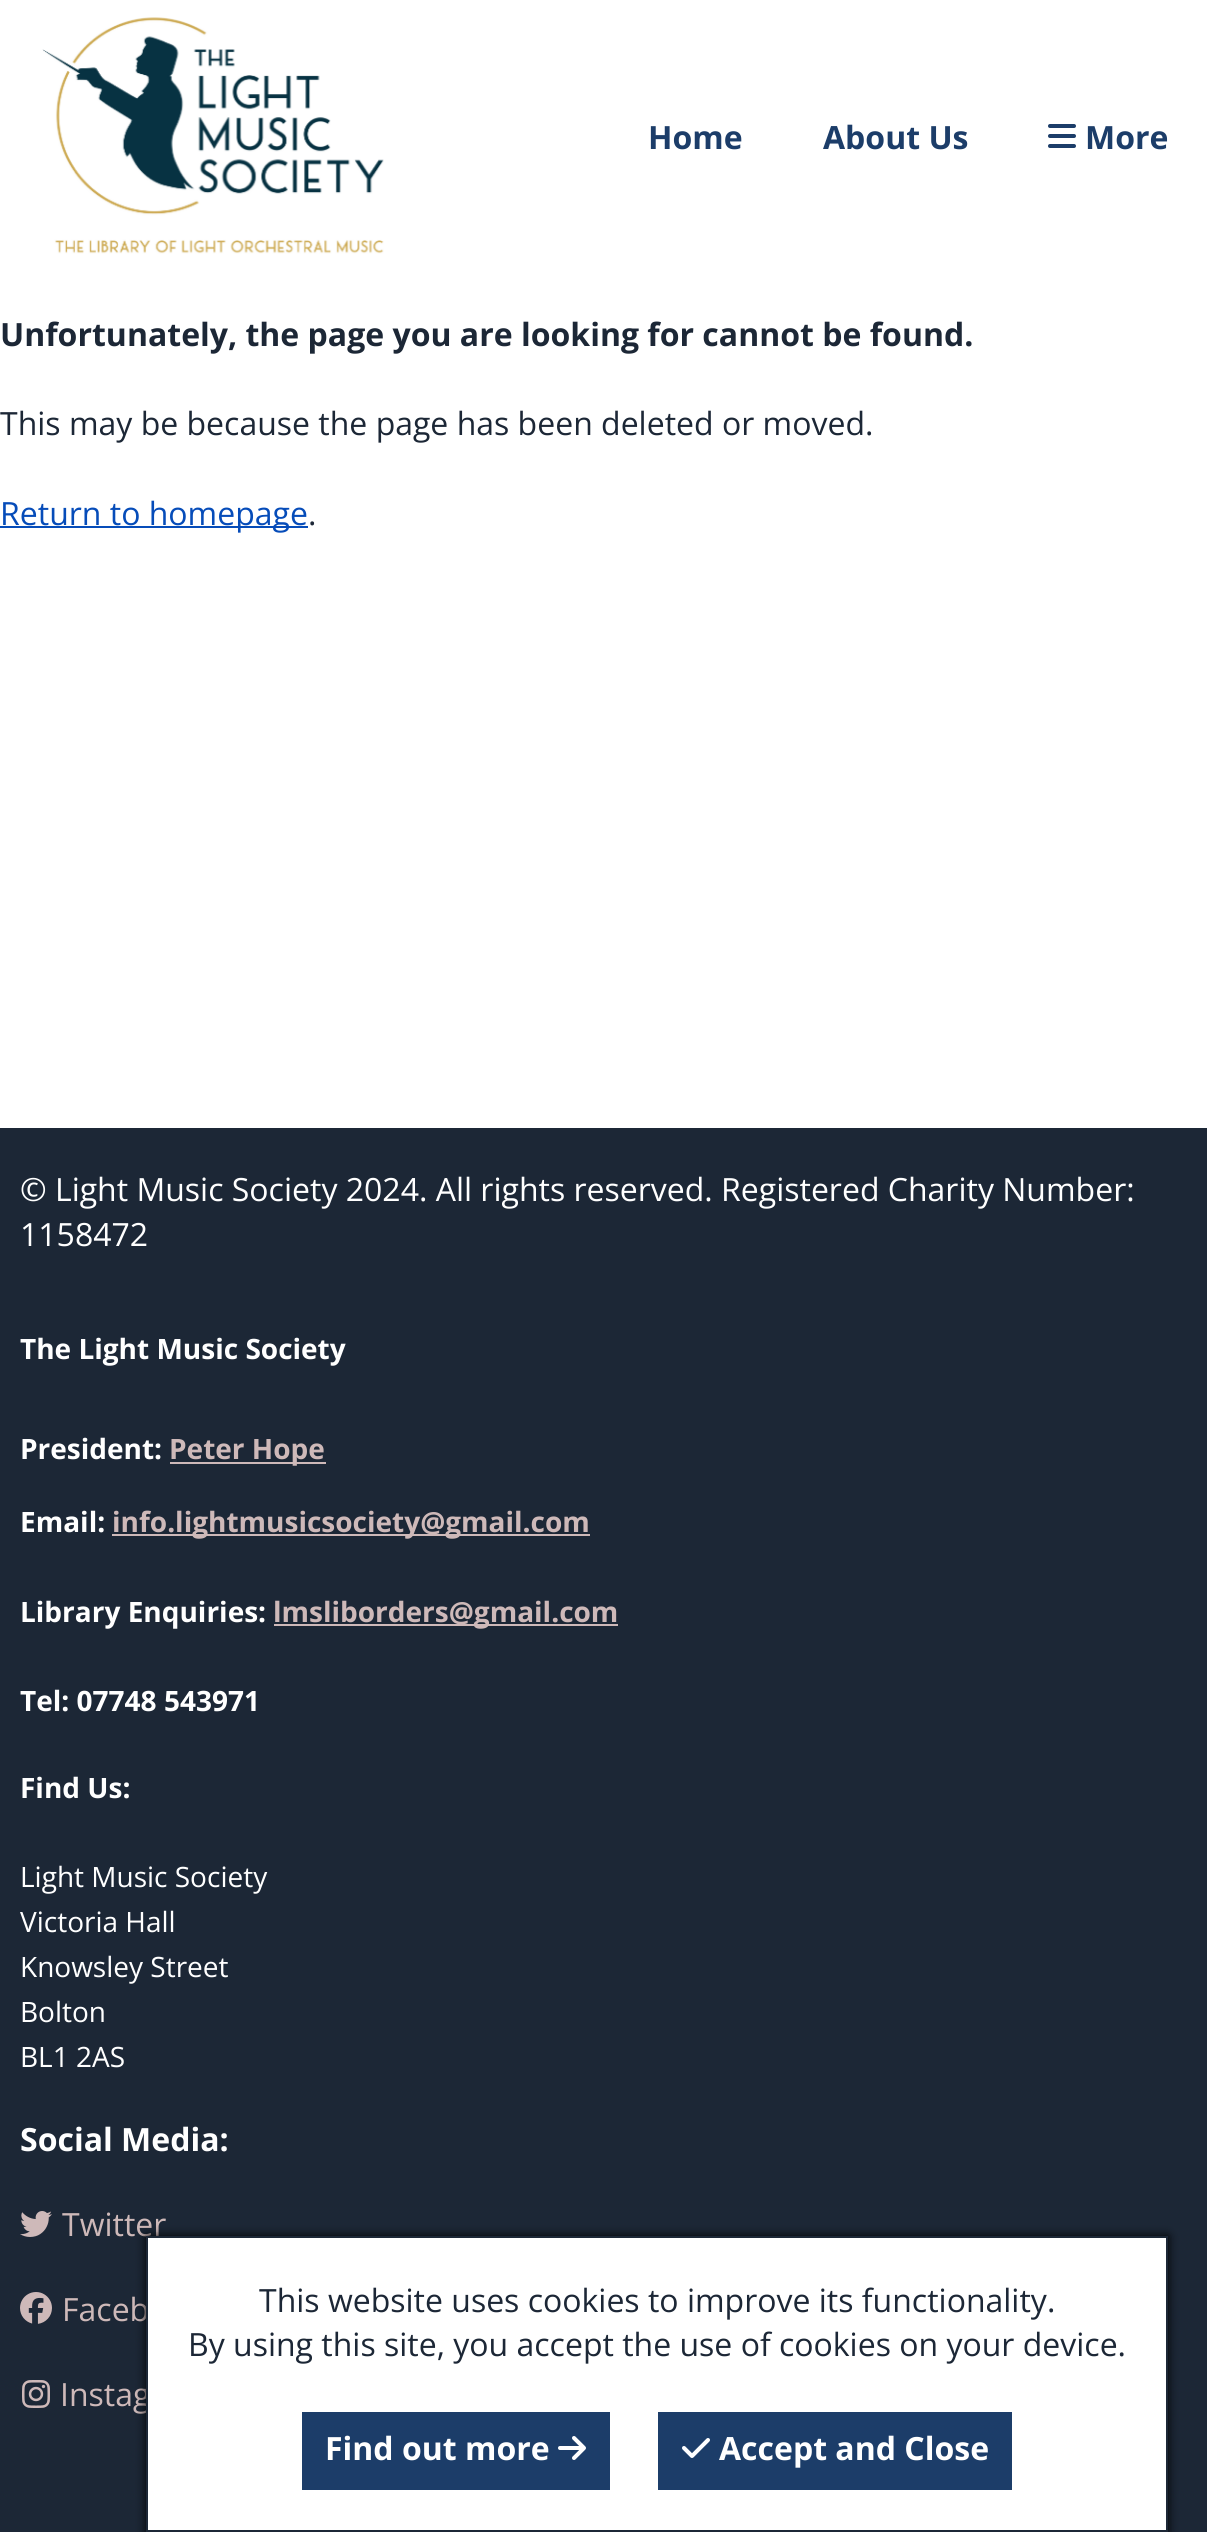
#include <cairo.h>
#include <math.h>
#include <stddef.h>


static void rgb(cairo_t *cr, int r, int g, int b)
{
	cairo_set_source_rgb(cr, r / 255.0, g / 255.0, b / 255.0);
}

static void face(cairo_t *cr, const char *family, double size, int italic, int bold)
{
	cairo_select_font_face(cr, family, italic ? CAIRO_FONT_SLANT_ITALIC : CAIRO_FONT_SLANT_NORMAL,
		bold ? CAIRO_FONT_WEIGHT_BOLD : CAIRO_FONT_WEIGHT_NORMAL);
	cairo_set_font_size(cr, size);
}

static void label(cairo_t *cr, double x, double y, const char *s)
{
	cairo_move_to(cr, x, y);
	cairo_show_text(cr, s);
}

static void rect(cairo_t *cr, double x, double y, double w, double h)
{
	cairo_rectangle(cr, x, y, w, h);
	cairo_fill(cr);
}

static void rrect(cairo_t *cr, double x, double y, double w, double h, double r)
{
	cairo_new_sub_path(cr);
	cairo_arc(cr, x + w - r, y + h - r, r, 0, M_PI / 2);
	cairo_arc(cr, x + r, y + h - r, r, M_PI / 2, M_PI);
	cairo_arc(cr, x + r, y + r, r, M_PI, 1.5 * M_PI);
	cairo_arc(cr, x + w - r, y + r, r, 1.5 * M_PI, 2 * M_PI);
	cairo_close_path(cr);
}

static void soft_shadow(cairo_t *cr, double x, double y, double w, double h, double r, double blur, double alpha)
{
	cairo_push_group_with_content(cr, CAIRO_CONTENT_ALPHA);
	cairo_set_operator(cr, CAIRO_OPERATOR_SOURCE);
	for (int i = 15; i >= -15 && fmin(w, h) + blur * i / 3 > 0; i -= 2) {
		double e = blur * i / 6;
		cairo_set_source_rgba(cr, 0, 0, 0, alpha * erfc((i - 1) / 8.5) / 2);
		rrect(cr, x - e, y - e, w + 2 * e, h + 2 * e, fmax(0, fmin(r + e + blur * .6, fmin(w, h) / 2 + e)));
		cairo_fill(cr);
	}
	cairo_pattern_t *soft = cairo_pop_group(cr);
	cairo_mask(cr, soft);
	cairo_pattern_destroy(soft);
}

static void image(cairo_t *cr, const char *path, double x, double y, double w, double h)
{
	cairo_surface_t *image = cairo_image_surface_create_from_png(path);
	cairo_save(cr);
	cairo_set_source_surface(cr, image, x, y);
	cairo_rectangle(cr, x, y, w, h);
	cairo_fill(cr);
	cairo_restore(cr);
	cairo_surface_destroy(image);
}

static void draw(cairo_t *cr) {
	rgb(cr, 255, 255, 255);
	cairo_paint(cr);
	image(cr, "image0.png", 42, 17, 342, 237);
	face(cr, "Open Sans", 32, 0, 1);
	rgb(cr, 28, 61, 105);
	label(cr, 648, 149, "Home");
	label(cr, 823, 149, "About Us");
	image(cr, "image1.png", 1048, 124, 28, 24);
	label(cr, 1085, 149, "More");
	rgb(cr, 28, 39, 54);
	label(cr, 0, 346, "Unfortunately, the page you are looking for cannot be found.");
	face(cr, "Open Sans", 32, 0, 0);
	label(cr, 0, 435, "This may be because the page has been deleted or moved.");
	rgb(cr, 6, 76, 185);
	rect(cr, 0, 526, 308, 2);
	label(cr, 0, 525, "Return to homepage");
	rgb(cr, 28, 39, 54);
	label(cr, 308, 525, ".");
	rect(cr, 0, 1128, 1207, 1404);
	rgb(cr, 255, 255, 255);
	label(cr, 20, 1201, "© Light Music Society 2024. All rights reserved. Registered Charity Number:");
	label(cr, 20, 1246, "1158472");
	face(cr, "Open Sans", 28, 0, 1);
	label(cr, 20, 1359, "The Light Music Society");
	label(cr, 20, 1459, "President:");
	rgb(cr, 206, 185, 185);
	rect(cr, 170, 1462, 156, 2);
	label(cr, 169, 1459, "Peter Hope");
	rgb(cr, 255, 255, 255);
	label(cr, 20, 1532, "Email:");
	rgb(cr, 206, 185, 185);
	rect(cr, 112, 1534, 478, 2);
	label(cr, 112, 1532, "info.lightmusicsociety@gmail.com");
	rgb(cr, 255, 255, 255);
	label(cr, 20, 1622, "Library Enquiries:");
	rgb(cr, 206, 185, 185);
	rect(cr, 274, 1624, 344, 2);
	label(cr, 273, 1622, "lmsliborders@gmail.com");
	rgb(cr, 255, 255, 255);
	label(cr, 20, 1711, "Tel: 07748 543971");
	label(cr, 20, 1798, "Find Us:");
	face(cr, "Open Sans", 28, 0, 0);
	label(cr, 20, 1887, "Light Music Society");
	label(cr, 20, 1932, "Victoria Hall");
	label(cr, 20, 1977, "Knowsley Street");
	label(cr, 20, 2022, "Bolton");
	label(cr, 20, 2067, "BL1 2AS");
	face(cr, "Open Sans", 32, 0, 1);
	label(cr, 20, 2151, "Social Media:");
	image(cr, "image2.png", 20, 2211, 32, 26);
	face(cr, "Open Sans", 32, 0, 0);
	rgb(cr, 206, 185, 185);
	label(cr, 62, 2236, "Twitter");
	image(cr, "image3.png", 20, 2292, 32, 32);
	label(cr, 62, 2321, "Faceb");
	image(cr, "image4.png", 22, 2380, 28, 28);
	label(cr, 60, 2406, "Instag");
	rgb(cr, 0, 0, 0);
	soft_shadow(cr, 146, 2236, 1022, 296, 0, 5, 1);
	rgb(cr, 255, 255, 255);
	cairo_rectangle(cr, 147, 2237, 1020, 294);
	cairo_fill_preserve(cr);
	rgb(cr, 28, 39, 54);
	cairo_stroke(cr);
	label(cr, 259, 2312, "This website uses cookies to improve its functionality.");
	label(cr, 188, 2356, "By using this site, you accept the use of cookies on your device.");
	rgb(cr, 28, 61, 105);
	rect(cr, 302, 2412, 308, 78);
	face(cr, "Open Sans", 32, 0, 1);
	rgb(cr, 255, 255, 255);
	label(cr, 325, 2460, "Find out more");
	image(cr, "image5.png", 558, 2436, 28, 24);
	rgb(cr, 28, 61, 105);
	rect(cr, 658, 2412, 354, 78);
	image(cr, "image6.png", 682, 2438, 28, 20);
	rgb(cr, 255, 255, 255);
	label(cr, 719, 2460, "Accept and Close");
}

int main(void) {
	cairo_surface_t *surface = cairo_image_surface_create(CAIRO_FORMAT_RGB24, 1207, 2532);
	cairo_t *cr = cairo_create(surface);
	cairo_font_options_t *options = cairo_font_options_create();
	cairo_font_options_set_hint_metrics(options, CAIRO_HINT_METRICS_OFF);
	cairo_font_options_set_hint_style(options, CAIRO_HINT_STYLE_NONE);
	cairo_set_font_options(cr, options);
	cairo_set_miter_limit(cr, 4);
	draw(cr);
	cairo_surface_write_to_png(surface, "render.png");
	cairo_font_options_destroy(options);
	cairo_destroy(cr);
	cairo_surface_destroy(surface);
	return 0;
}
